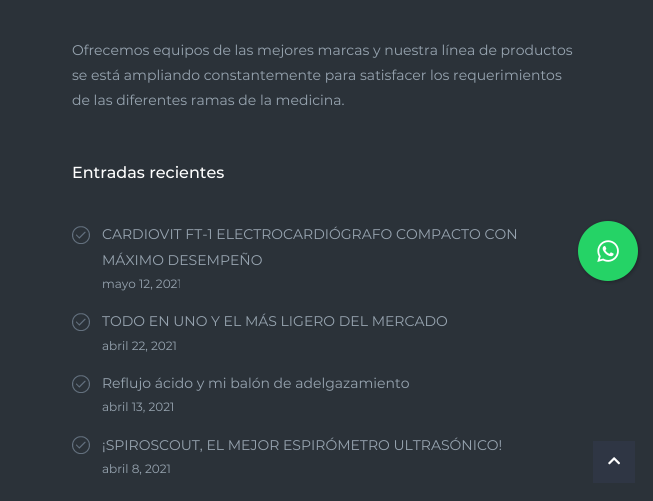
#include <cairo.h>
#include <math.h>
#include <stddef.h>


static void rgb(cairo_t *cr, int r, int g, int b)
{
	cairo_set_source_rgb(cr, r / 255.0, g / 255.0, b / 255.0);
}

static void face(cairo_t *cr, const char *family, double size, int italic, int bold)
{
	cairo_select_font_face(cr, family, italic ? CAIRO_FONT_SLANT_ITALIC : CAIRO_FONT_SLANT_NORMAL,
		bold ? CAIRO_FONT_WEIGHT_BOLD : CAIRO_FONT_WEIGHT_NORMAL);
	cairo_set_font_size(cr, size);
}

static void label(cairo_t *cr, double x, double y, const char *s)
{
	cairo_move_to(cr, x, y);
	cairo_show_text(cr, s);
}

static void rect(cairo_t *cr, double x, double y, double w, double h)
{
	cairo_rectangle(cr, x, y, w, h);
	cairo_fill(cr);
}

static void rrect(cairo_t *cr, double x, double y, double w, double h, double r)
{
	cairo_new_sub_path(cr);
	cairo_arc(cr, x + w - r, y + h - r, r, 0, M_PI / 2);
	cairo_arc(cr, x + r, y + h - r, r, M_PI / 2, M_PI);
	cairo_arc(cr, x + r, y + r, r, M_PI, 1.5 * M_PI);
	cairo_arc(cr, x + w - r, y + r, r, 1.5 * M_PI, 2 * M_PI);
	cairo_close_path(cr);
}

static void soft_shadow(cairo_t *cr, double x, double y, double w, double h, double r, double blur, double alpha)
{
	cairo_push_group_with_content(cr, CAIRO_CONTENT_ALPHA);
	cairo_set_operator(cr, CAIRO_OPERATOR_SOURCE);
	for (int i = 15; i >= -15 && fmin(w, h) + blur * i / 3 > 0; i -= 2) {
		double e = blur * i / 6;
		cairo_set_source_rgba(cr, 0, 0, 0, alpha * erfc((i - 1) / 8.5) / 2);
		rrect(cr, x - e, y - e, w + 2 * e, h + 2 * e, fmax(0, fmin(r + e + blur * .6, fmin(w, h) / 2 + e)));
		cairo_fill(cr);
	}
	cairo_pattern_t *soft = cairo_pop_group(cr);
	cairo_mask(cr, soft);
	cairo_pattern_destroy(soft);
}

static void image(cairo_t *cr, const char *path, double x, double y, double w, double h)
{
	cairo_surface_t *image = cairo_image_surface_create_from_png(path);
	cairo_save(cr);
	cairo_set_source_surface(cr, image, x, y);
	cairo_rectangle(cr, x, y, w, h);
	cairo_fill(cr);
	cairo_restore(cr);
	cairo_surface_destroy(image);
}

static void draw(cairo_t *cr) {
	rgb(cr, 43, 50, 57);
	cairo_paint(cr);
	face(cr, "Montserrat", 14, 0, 0);
	rgb(cr, 151, 164, 176);
	label(cr, 72, 55, "Ofrecemos equipos de las mejores marcas y nuestra línea de productos");
	label(cr, 72, 80, "se está ampliando constantemente para satisfacer los requerimientos");
	label(cr, 72, 105, "de las diferentes ramas de la medicina.");
	face(cr, "Montserrat Medium", 16, 0, 0);
	rgb(cr, 255, 255, 255);
	label(cr, 72, 178, "Entradas recientes");
	image(cr, "image0.png", 72, 226, 18, 18);
	face(cr, "Montserrat", 14, 0, 0);
	rgb(cr, 151, 164, 176);
	label(cr, 102, 239, "CARDIOVIT FT-1 ELECTROCARDIÓGRAFO COMPACTO CON");
	label(cr, 102, 265, "MÁXIMO DESEMPEÑO");
	face(cr, "Montserrat", 12, 0, 0);
	label(cr, 102, 288, "mayo 12, 2021");
	image(cr, "image0.png", 72, 313, 18, 18);
	face(cr, "Montserrat", 14, 0, 0);
	label(cr, 102, 326, "TODO EN UNO Y EL MÁS LIGERO DEL MERCADO");
	face(cr, "Montserrat", 12, 0, 0);
	label(cr, 102, 350, "abril 22, 2021");
	image(cr, "image0.png", 72, 375, 18, 18);
	face(cr, "Montserrat", 14, 0, 0);
	label(cr, 102, 388, "Reflujo ácido y mi balón de adelgazamiento");
	face(cr, "Montserrat", 12, 0, 0);
	label(cr, 102, 411, "abril 13, 2021");
	image(cr, "image0.png", 72, 436, 18, 18);
	face(cr, "Montserrat", 14, 0, 0);
	label(cr, 102, 450, "¡SPIROSCOUT, EL MEJOR ESPIRÓMETRO ULTRASÓNICO!");
	face(cr, "Montserrat", 12, 0, 0);
	label(cr, 102, 473, "abril 8, 2021");
	rgb(cr, 0, 0, 0);
	soft_shadow(cr, 579, 222, 60, 60, 30, 2, 0.3);
	rgb(cr, 37, 211, 102);
	cairo_arc(cr, 608, 251, 30, 0, 2 * M_PI);
	cairo_fill(cr);
	image(cr, "image1.png", 597, 240, 22, 22);
	rgb(cr, 47, 54, 68);
	rect(cr, 593, 441, 42, 42);
	image(cr, "image2.png", 608, 457, 12, 8);
}

int main(void) {
	cairo_surface_t *surface = cairo_image_surface_create(CAIRO_FORMAT_RGB24, 653, 501);
	cairo_t *cr = cairo_create(surface);
	cairo_font_options_t *options = cairo_font_options_create();
	cairo_font_options_set_hint_metrics(options, CAIRO_HINT_METRICS_OFF);
	cairo_font_options_set_hint_style(options, CAIRO_HINT_STYLE_NONE);
	cairo_set_font_options(cr, options);
	cairo_set_miter_limit(cr, 4);
	draw(cr);
	cairo_surface_write_to_png(surface, "render.png");
	cairo_font_options_destroy(options);
	cairo_destroy(cr);
	cairo_surface_destroy(surface);
	return 0;
}
